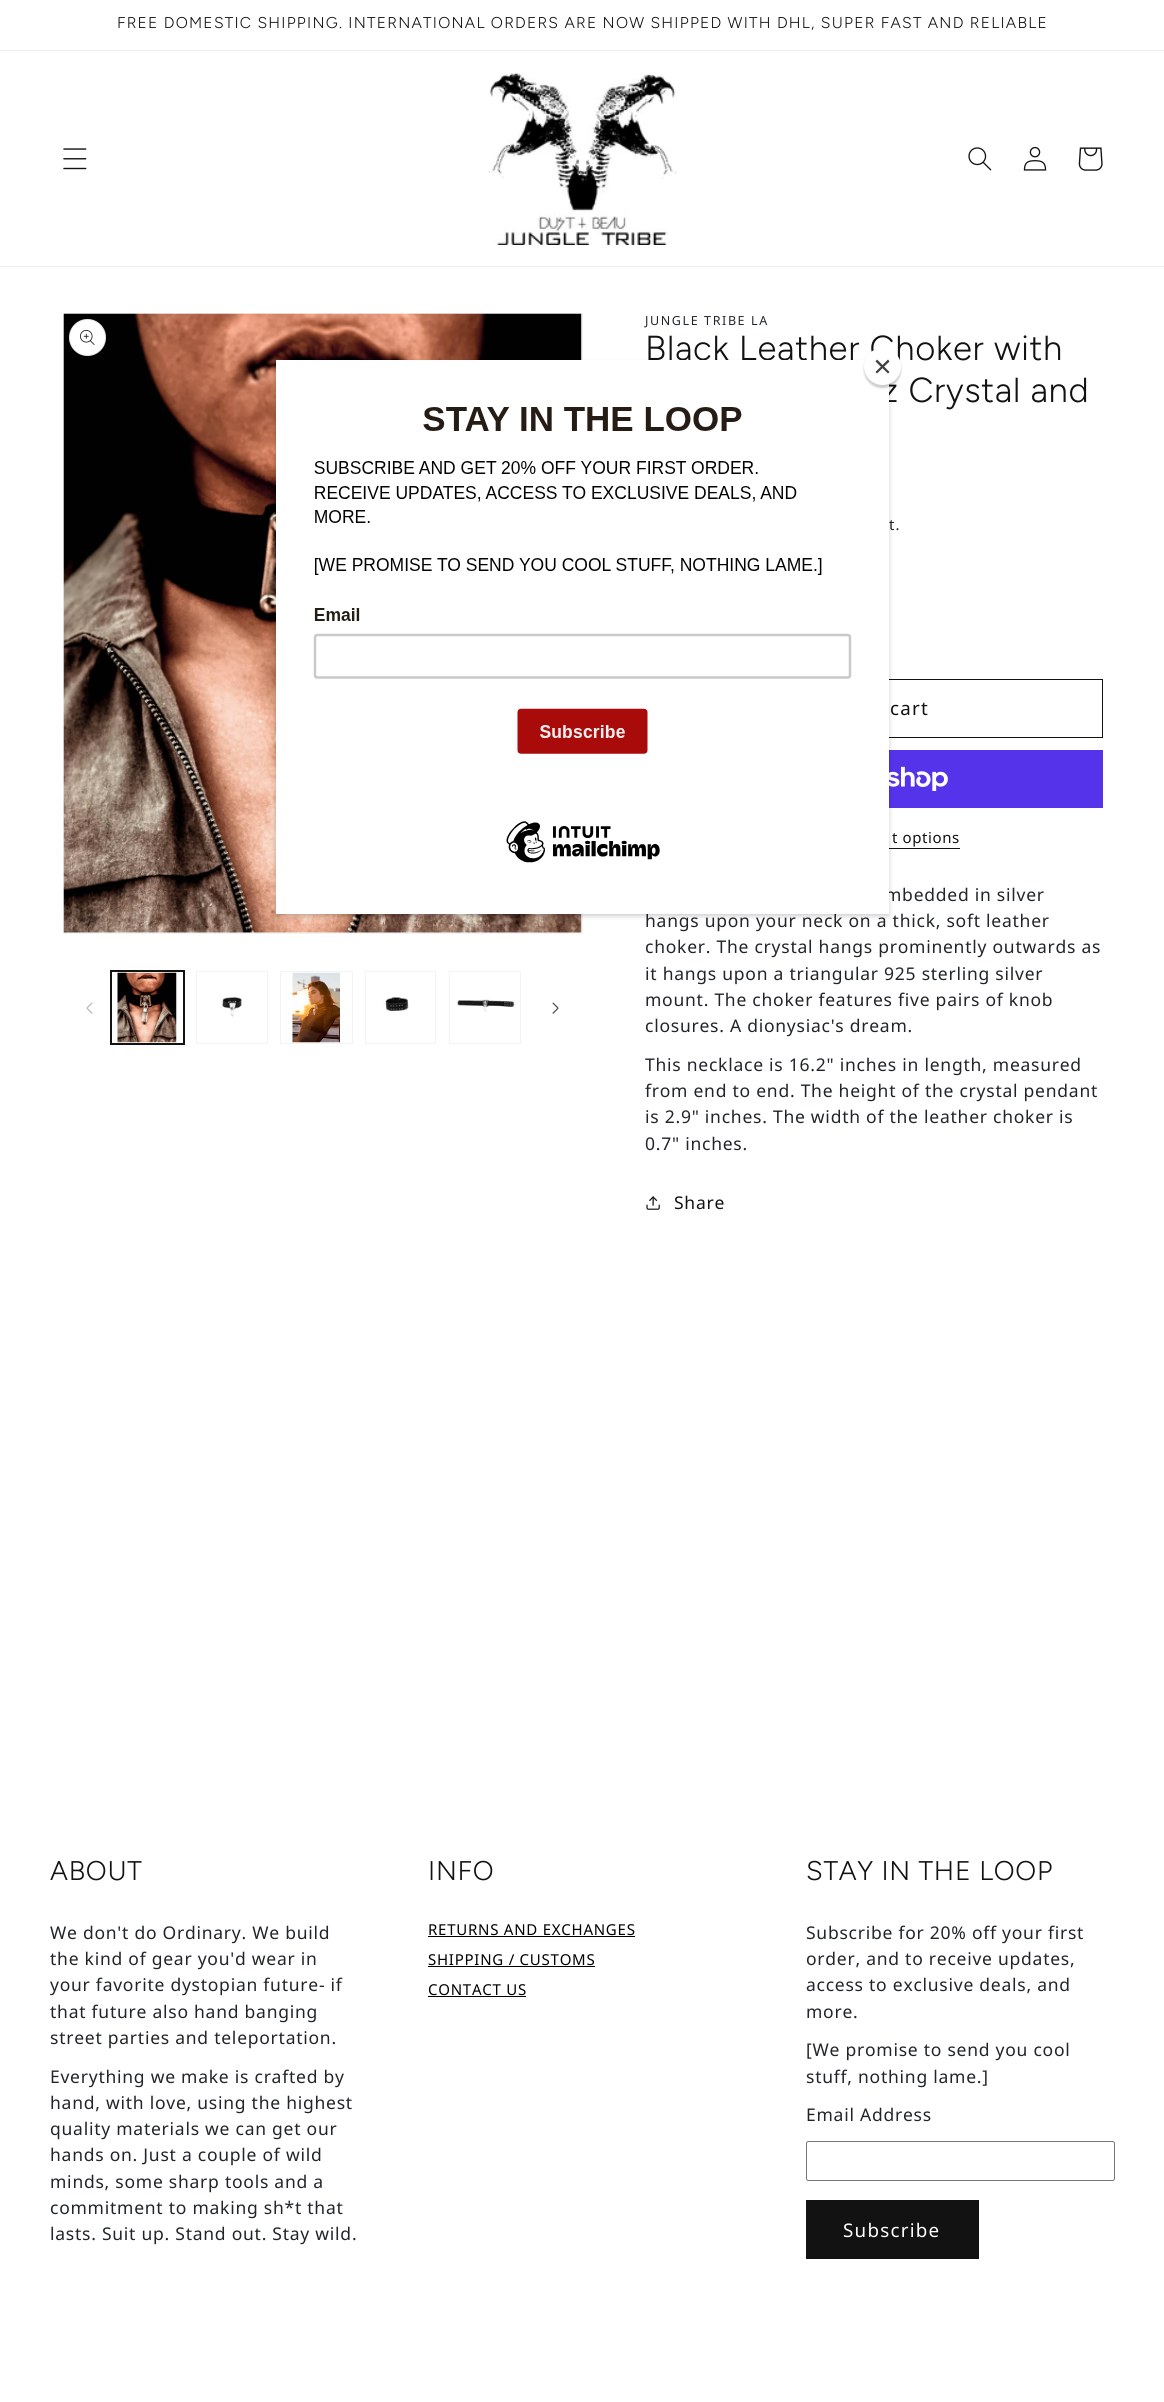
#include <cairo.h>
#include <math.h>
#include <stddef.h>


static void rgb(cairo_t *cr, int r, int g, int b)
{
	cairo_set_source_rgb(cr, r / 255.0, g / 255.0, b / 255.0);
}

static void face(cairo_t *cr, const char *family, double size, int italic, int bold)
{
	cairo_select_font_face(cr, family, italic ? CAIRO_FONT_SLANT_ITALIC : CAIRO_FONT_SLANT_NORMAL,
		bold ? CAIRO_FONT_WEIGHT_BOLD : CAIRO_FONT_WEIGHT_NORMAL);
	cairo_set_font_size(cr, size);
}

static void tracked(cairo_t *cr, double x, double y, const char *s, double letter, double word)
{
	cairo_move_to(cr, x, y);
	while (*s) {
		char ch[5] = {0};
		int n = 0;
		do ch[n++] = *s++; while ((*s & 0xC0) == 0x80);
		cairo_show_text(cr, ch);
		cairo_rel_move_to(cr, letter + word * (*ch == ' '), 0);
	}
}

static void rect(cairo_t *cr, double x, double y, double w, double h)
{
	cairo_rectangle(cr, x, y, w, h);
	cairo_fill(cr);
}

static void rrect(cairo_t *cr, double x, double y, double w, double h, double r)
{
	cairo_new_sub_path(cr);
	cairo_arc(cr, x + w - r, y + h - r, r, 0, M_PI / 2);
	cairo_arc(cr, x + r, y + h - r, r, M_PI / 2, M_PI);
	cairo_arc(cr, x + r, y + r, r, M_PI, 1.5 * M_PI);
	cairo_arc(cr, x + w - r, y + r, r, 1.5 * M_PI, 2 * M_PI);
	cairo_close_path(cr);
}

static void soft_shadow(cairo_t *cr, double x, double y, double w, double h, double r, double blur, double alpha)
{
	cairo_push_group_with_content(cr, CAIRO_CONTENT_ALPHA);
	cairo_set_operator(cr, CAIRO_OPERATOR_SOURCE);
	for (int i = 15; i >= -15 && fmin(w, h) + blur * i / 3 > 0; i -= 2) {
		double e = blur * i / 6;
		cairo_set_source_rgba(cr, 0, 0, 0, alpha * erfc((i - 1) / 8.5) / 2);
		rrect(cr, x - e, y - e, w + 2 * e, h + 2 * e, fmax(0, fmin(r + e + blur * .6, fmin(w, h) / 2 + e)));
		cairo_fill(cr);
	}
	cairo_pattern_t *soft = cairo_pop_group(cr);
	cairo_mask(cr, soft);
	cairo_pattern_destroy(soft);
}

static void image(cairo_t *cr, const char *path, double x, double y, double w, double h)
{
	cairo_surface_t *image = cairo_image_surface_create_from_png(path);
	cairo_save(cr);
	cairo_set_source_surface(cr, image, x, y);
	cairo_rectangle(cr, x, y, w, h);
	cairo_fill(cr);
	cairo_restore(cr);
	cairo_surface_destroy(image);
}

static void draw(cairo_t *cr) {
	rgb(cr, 255, 255, 255);
	cairo_paint(cr);
	rgb(cr, 236, 236, 236);
	rect(cr, 0, 50, 1164, 1);
	face(cr, "Figtree Light", 15.62, 0, 0);
	rgb(cr, 18, 18, 18);
	tracked(cr, 117, 28, "FREE DOMESTIC SHIPPING. INTERNATIONAL ORDERS ARE NOW SHIPPED WITH DHL, SUPER FAST AND RELIABLE", 1.25, 0);
	rgb(cr, 236, 236, 236);
	rect(cr, 0, 266, 1164, 1);
	image(cr, "image0.png", 63, 148, 24, 22);
	image(cr, "image1.png", 488, 73, 189, 172);
	image(cr, "image2.png", 968, 147, 24, 24);
	image(cr, "image3.png", 1023, 146, 24, 25);
	image(cr, "image4.png", 1078, 147, 25, 24);
	cairo_rectangle(cr, 63.5, 313.5, 519, 620);
	rgb(cr, 243, 243, 243);
	cairo_set_line_width(cr, 1);
	cairo_stroke(cr);
	image(cr, "image5.png", 63, 313, 519, 620);
	rgb(cr, 255, 255, 255);
	cairo_arc(cr, 87.5, 337.5, 18.5, 0, 2 * M_PI);
	cairo_fill(cr);
	cairo_arc(cr, 87.5, 337.5, 18, 0, 2 * M_PI);
	cairo_set_source_rgba(cr, 0.071, 0.071, 0.071, 0.1);
	cairo_stroke(cr);
	image(cr, "image6.png", 80, 330, 15, 15);
	image(cr, "image7.png", 86, 1002, 7, 12);
	cairo_rectangle(cr, 110.5, 970.5, 74, 74);
	rgb(cr, 18, 18, 18);
	cairo_stroke(cr);
	cairo_rectangle(cr, 111.5, 971.5, 72, 72);
	cairo_stroke(cr);
	image(cr, "image8.png", 117, 972, 60, 71);
	cairo_rectangle(cr, 196.5, 971.5, 71, 72);
	rgb(cr, 243, 243, 243);
	cairo_stroke(cr);
	image(cr, "image9.png", 221, 997, 21, 20);
	cairo_rectangle(cr, 280.5, 971.5, 72, 72);
	cairo_stroke(cr);
	image(cr, "image10.png", 292, 972, 48, 71);
	cairo_rectangle(cr, 365.5, 971.5, 70, 72);
	cairo_stroke(cr);
	image(cr, "image11.png", 383, 997, 26, 14);
	cairo_rectangle(cr, 449.5, 971.5, 71, 72);
	cairo_stroke(cr);
	image(cr, "image12.png", 457, 999, 59, 13);
	image(cr, "image13.png", 552, 1002, 7, 12);
	face(cr, "Noto Sans", 12.5, 0, 0);
	rgb(cr, 33, 37, 41);
	tracked(cr, 645, 325, "JUNGLE TRIBE LA", 1.6, 0);
	face(cr, "Figtree Light", 34.7, 0, 0);
	rgb(cr, 18, 18, 18);
	tracked(cr, 645, 360, "Black Leather Choker with", 0.75, 0);
	tracked(cr, 881, 402, "z Crystal and", 0.75, 0);
	face(cr, "Noto Sans", 15, 0, 0);
	rgb(cr, 33, 37, 41);
	tracked(cr, 889, 530, "t.", 1, 0);
	cairo_rectangle(cr, 645.5, 679.5, 457, 58);
	rgb(cr, 18, 18, 18);
	cairo_stroke(cr);
	face(cr, "Noto Sans", 18.75, 0, 0);
	tracked(cr, 890, 715, "cart", 1.25, 0);
	rgb(cr, 84, 51, 235);
	rect(cr, 889, 750, 214, 58);
	image(cr, "image14.png", 889, 766, 59, 25);
	face(cr, "Noto Sans", 15, 0, 0);
	rgb(cr, 18, 18, 18);
	tracked(cr, 892, 843, "t options", 0.6, 0);
	rect(cr, 889, 848, 71, 1);
	face(cr, "Noto Sans", 17.5, 0, 0);
	rgb(cr, 33, 37, 41);
	tracked(cr, 885, 901, "mbedded in silver", 0.75, 0);
	tracked(cr, 645, 927, "hangs upon your neck on a thick, soft leather", 0.75, 0);
	tracked(cr, 645, 953, "choker. The crystal hangs prominently outwards as", 0.75, 0);
	tracked(cr, 645, 980, "it hangs upon a triangular 925 sterling silver", 0.75, 0);
	tracked(cr, 645, 1006, "mount. The choker features five pairs of knob", 0.75, 0);
	tracked(cr, 645, 1032, "closures. A dionysiac's dream.", 0.75, 0);
	tracked(cr, 645, 1071, "This necklace is 16.2\" inches in length, measured", 0.75, 0);
	tracked(cr, 645, 1097, "from end to end. The height of the crystal pendant", 0.75, 0);
	tracked(cr, 645, 1123, "is 2.9\" inches. The width of the leather choker is", 0.75, 0);
	tracked(cr, 645, 1150, "0.7\" inches.", 0.75, 0);
	image(cr, "image15.png", 646, 1196, 14, 14);
	rgb(cr, 18, 18, 18);
	tracked(cr, 674, 1209, "Share", 0.75, 0);
	rgb(cr, 0, 0, 0);
	soft_shadow(cr, 276, 363, 613, 553, 0, 2.5, 0.2);
	image(cr, "image16.png", 276, 360, 613, 554);
	soft_shadow(cr, 864, 350, 37, 38, 18.5, 1, 0.2);
	rgb(cr, 255, 255, 255);
	cairo_arc(cr, 882.5, 366.5, 18.5, 0, 2 * M_PI);
	cairo_fill(cr);
	rgb(cr, 65, 65, 65);
	cairo_new_path(cr);
	cairo_move_to(cr, 888, 359.5);
	cairo_line_to(cr, 889.5, 361.5);
	cairo_line_to(cr, 877, 373.5);
	cairo_line_to(cr, 875.5, 372);
	cairo_close_path(cr);
	cairo_fill(cr);
	cairo_new_path(cr);
	cairo_move_to(cr, 875.5, 361.5);
	cairo_line_to(cr, 877, 359.5);
	cairo_line_to(cr, 889.5, 372);
	cairo_line_to(cr, 888, 373.5);
	cairo_close_path(cr);
	cairo_fill(cr);
	face(cr, "Figtree Light", 27, 0, 0);
	rgb(cr, 18, 18, 18);
	tracked(cr, 50, 1880, "ABOUT", 0.75, 0);
	face(cr, "Noto Sans", 17.5, 0, 0);
	rgb(cr, 33, 37, 41);
	tracked(cr, 50, 1939, "We don't do Ordinary. We build", 0.75, 0);
	tracked(cr, 50, 1965, "the kind of gear you'd wear in", 0.75, 0);
	tracked(cr, 50, 1991, "your favorite dystopian future- if", 0.75, 0);
	tracked(cr, 50, 2018, "that future also hand banging", 0.75, 0);
	tracked(cr, 50, 2044, "street parties and teleportation.", 0.75, 0);
	tracked(cr, 50, 2083, "Everything we make is crafted by", 0.75, 0);
	tracked(cr, 50, 2109, "hand, with love, using the highest", 0.75, 0);
	tracked(cr, 50, 2135, "quality materials we can get our", 0.75, 0);
	tracked(cr, 50, 2161, "hands on. Just a couple of wild", 0.75, 0);
	tracked(cr, 50, 2188, "minds, some sharp tools and a", 0.75, 0);
	tracked(cr, 50, 2214, "commitment to making sh*t that", 0.75, 0);
	tracked(cr, 50, 2240, "lasts. Suit up. Stand out. Stay wild.", 0.75, 0);
	face(cr, "Figtree Light", 27, 0, 0);
	rgb(cr, 18, 18, 18);
	tracked(cr, 428, 1880, "INFO", 0.75, 0);
	face(cr, "Noto Sans", 15, 0, 0);
	rgb(cr, 0, 0, 0);
	tracked(cr, 428, 1935, "RETURNS AND EXCHANGES", 0.75, 0);
	rect(cr, 428, 1936, 207, 1);
	tracked(cr, 428, 1965, "SHIPPING / CUSTOMS", 0.75, 0);
	rect(cr, 428, 1966, 167, 1);
	tracked(cr, 428, 1995, "CONTACT US", 0.75, 0);
	rect(cr, 428, 1996, 98, 1);
	face(cr, "Figtree Light", 27, 0, 0);
	rgb(cr, 18, 18, 18);
	tracked(cr, 806, 1880, "STAY IN THE LOOP", 0.75, 0);
	face(cr, "Noto Sans", 17.5, 0, 0);
	rgb(cr, 33, 37, 41);
	tracked(cr, 806, 1939, "Subscribe for 20% off your first", 0.75, 0);
	tracked(cr, 806, 1965, "order, and to receive updates,", 0.75, 0);
	tracked(cr, 806, 1991, "access to exclusive deals, and", 0.75, 0);
	tracked(cr, 806, 2018, "more.", 0.75, 0);
	tracked(cr, 806, 2056, "[We promise to send you cool", 0.75, 0);
	tracked(cr, 806, 2083, "stuff, nothing lame.]", 0.75, 0);
	tracked(cr, 806, 2121, "Email Address", 0.75, 0);
	rrect(cr, 806.5, 2141.5, 308, 39, 2);
	rgb(cr, 118, 118, 118);
	cairo_stroke(cr);
	rgb(cr, 18, 18, 18);
	rect(cr, 806, 2200, 173, 59);
	face(cr, "Noto Sans", 18.75, 0, 0);
	rgb(cr, 255, 255, 255);
	tracked(cr, 843, 2237, "Subscribe", 1.25, 0);
}

int main(void) {
	cairo_surface_t *surface = cairo_image_surface_create(CAIRO_FORMAT_RGB24, 1164, 2402);
	cairo_t *cr = cairo_create(surface);
	cairo_font_options_t *options = cairo_font_options_create();
	cairo_font_options_set_hint_metrics(options, CAIRO_HINT_METRICS_OFF);
	cairo_font_options_set_hint_style(options, CAIRO_HINT_STYLE_NONE);
	cairo_set_font_options(cr, options);
	cairo_set_miter_limit(cr, 4);
	draw(cr);
	cairo_surface_write_to_png(surface, "render.png");
	cairo_font_options_destroy(options);
	cairo_destroy(cr);
	cairo_surface_destroy(surface);
	return 0;
}
